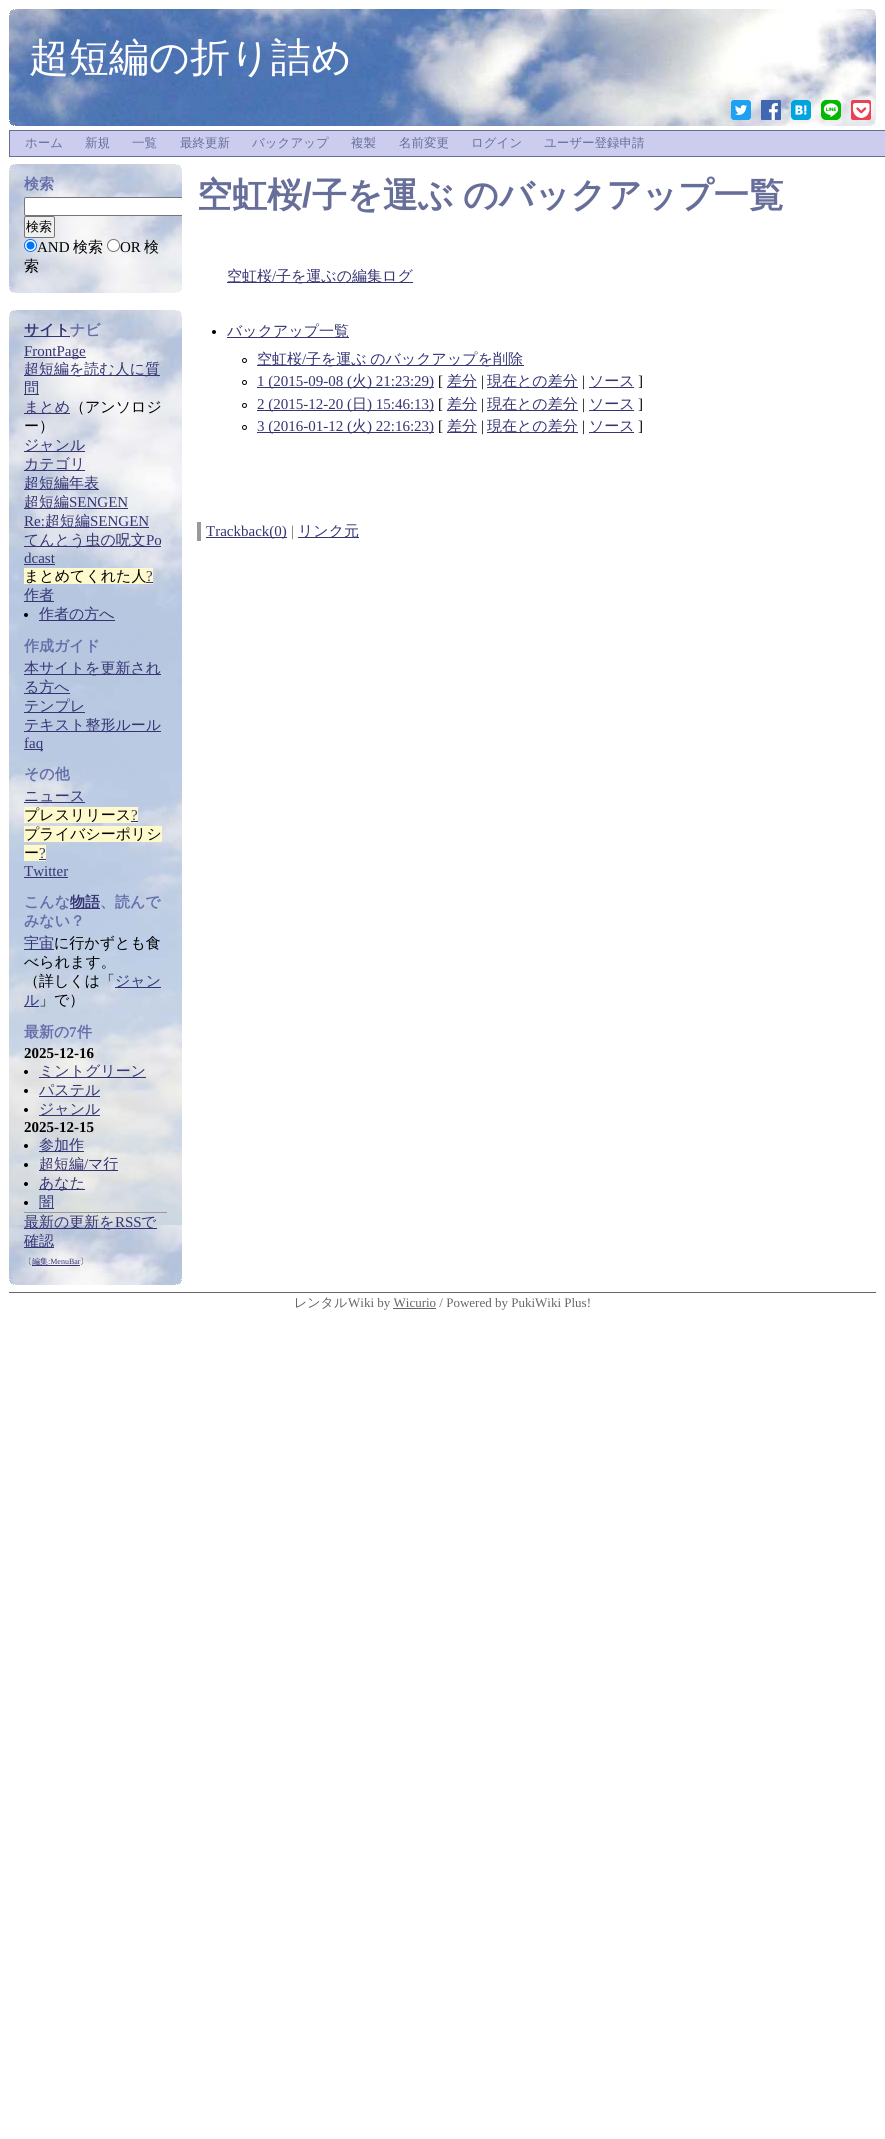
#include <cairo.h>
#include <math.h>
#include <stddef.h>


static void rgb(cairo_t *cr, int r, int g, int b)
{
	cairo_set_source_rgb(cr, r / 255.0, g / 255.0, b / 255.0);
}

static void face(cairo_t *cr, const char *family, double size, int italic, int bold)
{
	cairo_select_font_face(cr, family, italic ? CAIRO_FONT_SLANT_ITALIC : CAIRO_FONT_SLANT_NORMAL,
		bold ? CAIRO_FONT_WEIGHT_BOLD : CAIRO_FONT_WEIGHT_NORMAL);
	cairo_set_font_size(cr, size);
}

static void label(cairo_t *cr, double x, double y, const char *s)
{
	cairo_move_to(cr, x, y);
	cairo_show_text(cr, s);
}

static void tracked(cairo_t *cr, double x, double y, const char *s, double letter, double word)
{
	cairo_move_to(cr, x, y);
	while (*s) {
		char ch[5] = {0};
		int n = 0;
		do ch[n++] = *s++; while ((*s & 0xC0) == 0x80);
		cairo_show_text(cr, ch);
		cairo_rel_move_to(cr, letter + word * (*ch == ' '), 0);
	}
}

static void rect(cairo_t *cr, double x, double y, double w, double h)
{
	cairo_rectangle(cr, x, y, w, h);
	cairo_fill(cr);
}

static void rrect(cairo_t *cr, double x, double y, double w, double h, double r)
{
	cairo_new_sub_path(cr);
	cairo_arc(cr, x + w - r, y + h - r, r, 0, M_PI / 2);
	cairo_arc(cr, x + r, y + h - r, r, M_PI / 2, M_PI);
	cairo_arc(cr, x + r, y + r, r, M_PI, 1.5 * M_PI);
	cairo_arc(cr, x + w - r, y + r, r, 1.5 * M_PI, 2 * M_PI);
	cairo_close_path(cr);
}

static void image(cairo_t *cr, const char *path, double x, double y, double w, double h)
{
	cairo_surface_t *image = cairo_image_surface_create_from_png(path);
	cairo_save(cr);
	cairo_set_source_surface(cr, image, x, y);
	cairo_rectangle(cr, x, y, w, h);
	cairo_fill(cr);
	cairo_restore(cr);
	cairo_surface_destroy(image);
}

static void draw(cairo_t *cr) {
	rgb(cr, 255, 255, 255);
	cairo_paint(cr);
	image(cr, "image0.png", 9, 9, 867, 117);
	image(cr, "image1.png", 9, 9, 867, 6);
	face(cr, "WenQuanYi Zen Hei Medium", 40, 0, 0);
	rgb(cr, 255, 255, 255);
	label(cr, 29, 71, "超短編の折り詰め");
	image(cr, "image2.png", 731, 100, 20, 20);
	image(cr, "image3.png", 761, 100, 20, 20);
	image(cr, "image4.png", 791, 100, 20, 20);
	image(cr, "image5.png", 821, 100, 20, 20);
	image(cr, "image6.png", 851, 100, 20, 20);
	image(cr, "image7.png", 9, 120, 867, 6);
	rgb(cr, 204, 204, 238);
	cairo_rectangle(cr, 9.5, 130.5, 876, 26);
	cairo_fill_preserve(cr);
	rgb(cr, 102, 110, 153);
	cairo_set_line_width(cr, 1);
	cairo_stroke(cr);
	face(cr, "WenQuanYi Zen Hei Medium", 12.5, 0, 0);
	label(cr, 25, 147, "ホーム");
	label(cr, 85, 147, "新規");
	label(cr, 132, 147, "一覧");
	label(cr, 180, 147, "最終更新");
	label(cr, 252, 147, "バックアップ");
	label(cr, 351, 147, "複製");
	label(cr, 399, 147, "名前変更");
	label(cr, 471, 147, "ログイン");
	label(cr, 544, 147, "ユーザー登録申請");
	image(cr, "image8.png", 9, 164, 173, 129);
	image(cr, "image9.png", 9, 164, 173, 6);
	face(cr, "WenQuanYi Zen Hei", 15, 0, 1);
	rgb(cr, 102, 110, 170);
	label(cr, 24, 189, "検索");
	rgb(cr, 255, 255, 255);
	cairo_new_path(cr);
	cairo_move_to(cr, 26, 197);
	cairo_line_to(cr, 182, 197);
	cairo_line_to(cr, 182, 216);
	cairo_line_to(cr, 26, 216);
	cairo_curve_to(cr, 25, 216, 24, 215, 24, 214);
	cairo_line_to(cr, 24, 199);
	cairo_curve_to(cr, 24, 198, 25, 197, 26, 197);
	cairo_close_path(cr);
	cairo_fill(cr);
	face(cr, "WenQuanYi Zen Hei", 35, 0, 1);
	rgb(cr, 102, 110, 153);
	label(cr, 197, 207, "空虹桜");
	cairo_save(cr);
	cairo_rectangle(cr, 9, 164, 173, 1121);
	cairo_clip(cr);
	rrect(cr, 24.5, 197.5, 180, 18, 1.5);
	rgb(cr, 118, 118, 118);
	cairo_stroke(cr);
	cairo_restore(cr);
	rgb(cr, 239, 239, 239);
	rrect(cr, 24.5, 216.5, 30, 21, 1.5);
	cairo_fill_preserve(cr);
	rgb(cr, 118, 118, 118);
	cairo_stroke(cr);
	face(cr, "WenQuanYi Zen Hei Medium", 13, 0, 0);
	rgb(cr, 0, 0, 0);
	label(cr, 26, 231, "検索");
	rgb(cr, 255, 255, 255);
	cairo_new_path(cr);
	cairo_arc(cr, 30.5, 245.5, 6, 0, 2 * M_PI);
	cairo_fill_preserve(cr);
	rgb(cr, 0, 117, 255);
	cairo_stroke(cr);
	cairo_arc(cr, 30.5, 245.5, 4, 0, 2 * M_PI);
	cairo_fill(cr);
	face(cr, "Liberation Serif", 15, 0, 0);
	rgb(cr, 0, 0, 0);
	label(cr, 37, 252, "AND");
	face(cr, "WenQuanYi Zen Hei Medium", 15, 0, 0);
	label(cr, 73, 252, "検索");
	rgb(cr, 255, 255, 255);
	cairo_new_path(cr);
	cairo_arc(cr, 113.5, 245.5, 6, 0, 2 * M_PI);
	cairo_fill_preserve(cr);
	rgb(cr, 118, 118, 118);
	cairo_stroke(cr);
	face(cr, "Liberation Serif", 15, 0, 0);
	rgb(cr, 0, 0, 0);
	label(cr, 120, 252, "OR");
	face(cr, "WenQuanYi Zen Hei Medium", 15, 0, 0);
	label(cr, 144, 252, "検");
	label(cr, 24, 271, "索");
	image(cr, "image10.png", 9, 287, 173, 6);
	image(cr, "image11.png", 9, 310, 173, 975);
	image(cr, "image12.png", 9, 310, 173, 6);
	rgb(cr, 53, 53, 115);
	rect(cr, 24, 336, 46, 1);
	face(cr, "WenQuanYi Zen Hei", 15, 0, 1);
	label(cr, 24, 335, "サイト");
	rgb(cr, 102, 110, 170);
	label(cr, 70, 335, "ナビ");
	rgb(cr, 53, 53, 115);
	rect(cr, 24, 357, 62, 1);
	face(cr, "Liberation Serif", 15, 0, 0);
	label(cr, 24, 356, "FrontPage");
	rect(cr, 24, 375, 136, 1);
	face(cr, "WenQuanYi Zen Hei Medium", 15, 0, 0);
	label(cr, 24, 374, "超短編を読む人に質");
	rect(cr, 24, 394, 15, 1);
	label(cr, 24, 393, "問");
	rect(cr, 24, 413, 46, 1);
	label(cr, 24, 412, "まとめ");
	rgb(cr, 0, 0, 0);
	label(cr, 70, 412, "（アンソロジ");
	label(cr, 24, 431, "ー）");
	rgb(cr, 53, 53, 115);
	rect(cr, 24, 451, 61, 1);
	label(cr, 24, 450, "ジャンル");
	rect(cr, 24, 470, 61, 1);
	label(cr, 24, 469, "カテゴリ");
	rect(cr, 24, 489, 75, 1);
	label(cr, 24, 488, "超短編年表");
	rect(cr, 24, 508, 104, 1);
	label(cr, 24, 507, "超短編");
	face(cr, "Liberation Serif", 15, 0, 0);
	label(cr, 69, 507, "SENGEN");
	label(cr, 24, 526, "Re:");
	rect(cr, 24, 527, 125, 1);
	face(cr, "WenQuanYi Zen Hei Medium", 15, 0, 0);
	label(cr, 45, 526, "超短編");
	face(cr, "Liberation Serif", 15, 0, 0);
	label(cr, 90, 526, "SENGEN");
	rect(cr, 24, 546, 137, 1);
	face(cr, "WenQuanYi Zen Hei Medium", 15, 0, 0);
	label(cr, 24, 545, "てんとう虫の呪文");
	face(cr, "Liberation Serif", 15, 0, 0);
	label(cr, 146, 545, "Po");
	label(cr, 24, 563, "dcast");
	rect(cr, 24, 564, 31, 1);
	rgb(cr, 255, 250, 204);
	rect(cr, 24, 568, 129, 16);
	face(cr, "WenQuanYi Zen Hei Medium", 15, 0, 0);
	rgb(cr, 0, 0, 0);
	label(cr, 24, 581, "まとめてくれた人");
	rgb(cr, 53, 53, 115);
	rect(cr, 146, 582, 7, 1);
	face(cr, "Liberation Serif", 15, 0, 0);
	label(cr, 146, 581, "?");
	rect(cr, 24, 601, 30, 1);
	face(cr, "WenQuanYi Zen Hei Medium", 15, 0, 0);
	label(cr, 24, 600, "作者");
	rgb(cr, 0, 0, 0);
	cairo_new_path(cr);
	cairo_arc(cr, 26, 615, 2, 0, 2 * M_PI);
	cairo_fill(cr);
	rgb(cr, 53, 53, 115);
	rect(cr, 39, 620, 76, 1);
	label(cr, 39, 619, "作者の方へ");
	face(cr, "WenQuanYi Zen Hei", 15, 0, 1);
	rgb(cr, 102, 110, 170);
	label(cr, 24, 651, "作成ガイド");
	rgb(cr, 53, 53, 115);
	rect(cr, 24, 674, 137, 1);
	face(cr, "WenQuanYi Zen Hei Medium", 15, 0, 0);
	label(cr, 24, 673, "本サイトを更新され");
	rect(cr, 24, 693, 46, 1);
	label(cr, 24, 692, "る方へ");
	rect(cr, 24, 712, 61, 1);
	label(cr, 24, 711, "テンプレ");
	rect(cr, 24, 731, 137, 1);
	label(cr, 24, 730, "テキスト整形ルール");
	rect(cr, 24, 749, 19, 1);
	face(cr, "Liberation Serif", 15, 0, 0);
	label(cr, 24, 748, "faq");
	face(cr, "WenQuanYi Zen Hei", 15, 0, 1);
	rgb(cr, 102, 110, 170);
	label(cr, 24, 779, "その他");
	face(cr, "WenQuanYi Zen Hei Medium", 15, 0, 0);
	rgb(cr, 53, 53, 115);
	label(cr, 24, 801, "ニュース");
	rect(cr, 24, 802, 61, 1);
	rgb(cr, 255, 250, 204);
	rect(cr, 24, 807, 114, 16);
	rgb(cr, 0, 0, 0);
	label(cr, 24, 820, "プレスリリース");
	face(cr, "Liberation Serif", 15, 0, 0);
	rgb(cr, 53, 53, 115);
	label(cr, 131, 820, "?");
	rect(cr, 131, 821, 7, 1);
	rgb(cr, 255, 250, 204);
	rect(cr, 24, 826, 138, 16);
	face(cr, "WenQuanYi Zen Hei Medium", 15, 0, 0);
	rgb(cr, 0, 0, 0);
	label(cr, 24, 839, "プライバシーポリシ");
	rgb(cr, 255, 250, 204);
	rect(cr, 24, 845, 22, 16);
	rgb(cr, 0, 0, 0);
	label(cr, 24, 858, "ー");
	face(cr, "Liberation Serif", 15, 0, 0);
	rgb(cr, 53, 53, 115);
	label(cr, 39, 858, "?");
	rect(cr, 39, 859, 7, 1);
	label(cr, 24, 876, "Twitter");
	rect(cr, 24, 877, 44, 1);
	face(cr, "WenQuanYi Zen Hei", 15, 0, 1);
	rgb(cr, 102, 110, 170);
	label(cr, 24, 907, "こんな");
	rgb(cr, 53, 53, 115);
	rect(cr, 70, 908, 30, 1);
	label(cr, 70, 907, "物語");
	rgb(cr, 102, 110, 170);
	label(cr, 100, 907, "、読んで");
	label(cr, 24, 926, "みない？");
	rgb(cr, 53, 53, 115);
	rect(cr, 24, 949, 30, 1);
	face(cr, "WenQuanYi Zen Hei Medium", 15, 0, 0);
	label(cr, 24, 948, "宇宙");
	rgb(cr, 0, 0, 0);
	label(cr, 54, 948, "に行かずとも食");
	label(cr, 24, 967, "べられます。");
	label(cr, 24, 986, "（詳しくは「");
	rgb(cr, 53, 53, 115);
	rect(cr, 115, 987, 46, 1);
	label(cr, 115, 986, "ジャン");
	label(cr, 24, 1005, "ル");
	rect(cr, 24, 1006, 15, 1);
	rgb(cr, 0, 0, 0);
	label(cr, 39, 1005, "」で）");
	face(cr, "WenQuanYi Zen Hei", 15, 0, 1);
	rgb(cr, 102, 110, 170);
	label(cr, 24, 1037, "最新の");
	face(cr, "Liberation Serif", 15, 0, 1);
	label(cr, 69, 1037, "7");
	face(cr, "WenQuanYi Zen Hei", 15, 0, 1);
	label(cr, 77, 1037, "件");
	face(cr, "Liberation Serif", 15, 0, 1);
	rgb(cr, 0, 0, 0);
	label(cr, 24, 1058, "2025-12-16");
	cairo_new_path(cr);
	cairo_arc(cr, 26, 1072, 2, 0, 2 * M_PI);
	cairo_fill(cr);
	rgb(cr, 53, 53, 115);
	rect(cr, 39, 1077, 107, 1);
	face(cr, "WenQuanYi Zen Hei Medium", 15, 0, 0);
	label(cr, 39, 1076, "ミントグリーン");
	rgb(cr, 0, 0, 0);
	cairo_new_path(cr);
	cairo_arc(cr, 26, 1091, 2, 0, 2 * M_PI);
	cairo_fill(cr);
	rgb(cr, 53, 53, 115);
	rect(cr, 39, 1096, 61, 1);
	label(cr, 39, 1095, "パステル");
	rgb(cr, 0, 0, 0);
	cairo_new_path(cr);
	cairo_arc(cr, 26, 1110, 2, 0, 2 * M_PI);
	cairo_fill(cr);
	rgb(cr, 53, 53, 115);
	rect(cr, 39, 1115, 61, 1);
	label(cr, 39, 1114, "ジャンル");
	face(cr, "Liberation Serif", 15, 0, 1);
	rgb(cr, 0, 0, 0);
	label(cr, 24, 1132, "2025-12-15");
	cairo_new_path(cr);
	cairo_arc(cr, 26, 1146, 2, 0, 2 * M_PI);
	cairo_fill(cr);
	rgb(cr, 53, 53, 115);
	rect(cr, 39, 1151, 45, 1);
	face(cr, "WenQuanYi Zen Hei Medium", 15, 0, 0);
	label(cr, 39, 1150, "参加作");
	rgb(cr, 0, 0, 0);
	cairo_new_path(cr);
	cairo_arc(cr, 26, 1165, 2, 0, 2 * M_PI);
	cairo_fill(cr);
	rgb(cr, 53, 53, 115);
	rect(cr, 39, 1170, 79, 1);
	label(cr, 39, 1169, "超短編");
	face(cr, "Liberation Serif", 15, 0, 0);
	label(cr, 84, 1169, "/");
	face(cr, "WenQuanYi Zen Hei Medium", 15, 0, 0);
	label(cr, 88, 1169, "マ行");
	rgb(cr, 0, 0, 0);
	cairo_new_path(cr);
	cairo_arc(cr, 26, 1184, 2, 0, 2 * M_PI);
	cairo_fill(cr);
	rgb(cr, 53, 53, 115);
	rect(cr, 39, 1189, 46, 1);
	label(cr, 39, 1188, "あなた");
	rgb(cr, 0, 0, 0);
	cairo_new_path(cr);
	cairo_arc(cr, 26, 1203, 2, 0, 2 * M_PI);
	cairo_fill(cr);
	rgb(cr, 53, 53, 115);
	rect(cr, 39, 1208, 15, 1);
	label(cr, 39, 1207, "闇");
	rgb(cr, 153, 153, 153);
	rect(cr, 24, 1212, 143, 1);
	rgb(cr, 53, 53, 115);
	rect(cr, 24, 1228, 133, 1);
	label(cr, 24, 1227, "最新の更新を");
	face(cr, "Liberation Serif", 15, 0, 0);
	label(cr, 115, 1227, "RSS");
	face(cr, "WenQuanYi Zen Hei Medium", 15, 0, 0);
	label(cr, 141, 1227, "で");
	rect(cr, 24, 1247, 30, 1);
	label(cr, 24, 1246, "確認");
	face(cr, "WenQuanYi Zen Hei Medium", 8, 0, 0);
	rgb(cr, 0, 0, 0);
	label(cr, 24, 1264, "〔");
	rgb(cr, 53, 53, 115);
	label(cr, 32, 1264, "編集");
	face(cr, "Liberation Serif", 8, 0, 0);
	label(cr, 48, 1264, ":MenuBar");
	rect(cr, 32, 1265, 48, 1);
	face(cr, "WenQuanYi Zen Hei Medium", 8, 0, 0);
	rgb(cr, 0, 0, 0);
	label(cr, 80, 1264, "〕");
	image(cr, "image13.png", 9, 1279, 173, 6);
	face(cr, "Liberation Sans", 35, 0, 1);
	rgb(cr, 102, 110, 153);
	label(cr, 302, 207, "/");
	face(cr, "WenQuanYi Zen Hei", 35, 0, 1);
	label(cr, 312, 207, "子を運ぶ");
	label(cr, 463, 207, "のバックアップ一覧");
	rgb(cr, 53, 53, 115);
	rect(cr, 227, 282, 186, 1);
	face(cr, "WenQuanYi Zen Hei Medium", 15, 0, 0);
	label(cr, 227, 281, "空虹桜");
	face(cr, "Liberation Serif", 15, 0, 0);
	label(cr, 272, 281, "/");
	face(cr, "WenQuanYi Zen Hei Medium", 15, 0, 0);
	label(cr, 276, 281, "子を運ぶの編集ログ");
	rgb(cr, 0, 0, 0);
	cairo_new_path(cr);
	cairo_arc(cr, 214, 332, 2, 0, 2 * M_PI);
	cairo_fill(cr);
	rgb(cr, 53, 53, 115);
	rect(cr, 227, 337, 122, 1);
	label(cr, 227, 336, "バックアップ一覧");
	cairo_new_path(cr);
	cairo_arc(cr, 244.5, 360.5, 2, 0, 2 * M_PI);
	rgb(cr, 0, 0, 0);
	cairo_stroke(cr);
	rgb(cr, 53, 53, 115);
	rect(cr, 257, 365, 267, 1);
	label(cr, 257, 364, "空虹桜");
	face(cr, "Liberation Serif", 15, 0, 0);
	label(cr, 302, 364, "/");
	face(cr, "WenQuanYi Zen Hei Medium", 15, 0, 0);
	tracked(cr, 306, 364, "子を運ぶ のバックアップを削除", 0, -1);
	cairo_new_path(cr);
	cairo_arc(cr, 244.5, 382.5, 2, 0, 2 * M_PI);
	rgb(cr, 0, 0, 0);
	cairo_stroke(cr);
	rgb(cr, 53, 53, 115);
	rect(cr, 257, 387, 177, 1);
	face(cr, "Liberation Serif", 15, 0, 0);
	label(cr, 257, 386, "1 (2015-09-08 (");
	face(cr, "WenQuanYi Zen Hei Medium", 15, 0, 0);
	label(cr, 352, 386, "火");
	face(cr, "Liberation Serif", 15, 0, 0);
	label(cr, 367, 386, ") 21:23:29)");
	rgb(cr, 0, 0, 0);
	label(cr, 438, 386, "[");
	rgb(cr, 53, 53, 115);
	rect(cr, 447, 387, 30, 1);
	face(cr, "WenQuanYi Zen Hei Medium", 15, 0, 0);
	label(cr, 447, 386, "差分");
	face(cr, "Liberation Serif", 15, 0, 0);
	rgb(cr, 0, 0, 0);
	label(cr, 481, 386, "|");
	rgb(cr, 53, 53, 115);
	rect(cr, 487, 387, 91, 1);
	face(cr, "WenQuanYi Zen Hei Medium", 15, 0, 0);
	label(cr, 487, 386, "現在との差分");
	face(cr, "Liberation Serif", 15, 0, 0);
	rgb(cr, 0, 0, 0);
	label(cr, 582, 386, "|");
	rgb(cr, 53, 53, 115);
	rect(cr, 589, 387, 45, 1);
	face(cr, "WenQuanYi Zen Hei Medium", 15, 0, 0);
	label(cr, 589, 386, "ソース");
	face(cr, "Liberation Serif", 15, 0, 0);
	rgb(cr, 0, 0, 0);
	label(cr, 638, 386, "]");
	cairo_new_path(cr);
	cairo_arc(cr, 244.5, 405.5, 2, 0, 2 * M_PI);
	cairo_stroke(cr);
	rgb(cr, 53, 53, 115);
	rect(cr, 257, 410, 177, 1);
	label(cr, 257, 409, "2 (2015-12-20 (");
	face(cr, "WenQuanYi Zen Hei Medium", 15, 0, 0);
	label(cr, 352, 409, "日");
	face(cr, "Liberation Serif", 15, 0, 0);
	label(cr, 367, 409, ") 15:46:13)");
	rgb(cr, 0, 0, 0);
	label(cr, 438, 409, "[");
	rgb(cr, 53, 53, 115);
	rect(cr, 447, 410, 30, 1);
	face(cr, "WenQuanYi Zen Hei Medium", 15, 0, 0);
	label(cr, 447, 409, "差分");
	face(cr, "Liberation Serif", 15, 0, 0);
	rgb(cr, 0, 0, 0);
	label(cr, 481, 409, "|");
	rgb(cr, 53, 53, 115);
	rect(cr, 487, 410, 91, 1);
	face(cr, "WenQuanYi Zen Hei Medium", 15, 0, 0);
	label(cr, 487, 409, "現在との差分");
	face(cr, "Liberation Serif", 15, 0, 0);
	rgb(cr, 0, 0, 0);
	label(cr, 582, 409, "|");
	rgb(cr, 53, 53, 115);
	rect(cr, 589, 410, 45, 1);
	face(cr, "WenQuanYi Zen Hei Medium", 15, 0, 0);
	label(cr, 589, 409, "ソース");
	face(cr, "Liberation Serif", 15, 0, 0);
	rgb(cr, 0, 0, 0);
	label(cr, 638, 409, "]");
	cairo_new_path(cr);
	cairo_arc(cr, 244.5, 427.5, 2, 0, 2 * M_PI);
	cairo_stroke(cr);
	rgb(cr, 53, 53, 115);
	rect(cr, 257, 432, 177, 1);
	label(cr, 257, 431, "3 (2016-01-12 (");
	face(cr, "WenQuanYi Zen Hei Medium", 15, 0, 0);
	label(cr, 352, 431, "火");
	face(cr, "Liberation Serif", 15, 0, 0);
	label(cr, 367, 431, ") 22:16:23)");
	rgb(cr, 0, 0, 0);
	label(cr, 438, 431, "[");
	rgb(cr, 53, 53, 115);
	rect(cr, 447, 432, 30, 1);
	face(cr, "WenQuanYi Zen Hei Medium", 15, 0, 0);
	label(cr, 447, 431, "差分");
	face(cr, "Liberation Serif", 15, 0, 0);
	rgb(cr, 0, 0, 0);
	label(cr, 481, 431, "|");
	rgb(cr, 53, 53, 115);
	rect(cr, 487, 432, 91, 1);
	face(cr, "WenQuanYi Zen Hei Medium", 15, 0, 0);
	label(cr, 487, 431, "現在との差分");
	face(cr, "Liberation Serif", 15, 0, 0);
	rgb(cr, 0, 0, 0);
	label(cr, 582, 431, "|");
	rgb(cr, 53, 53, 115);
	rect(cr, 589, 432, 45, 1);
	face(cr, "WenQuanYi Zen Hei Medium", 15, 0, 0);
	label(cr, 589, 431, "ソース");
	face(cr, "Liberation Serif", 15, 0, 0);
	rgb(cr, 0, 0, 0);
	label(cr, 638, 431, "]");
	rgb(cr, 153, 153, 153);
	rect(cr, 197, 522, 4, 19);
	rgb(cr, 53, 53, 115);
	rect(cr, 206, 537, 81, 1);
	label(cr, 206, 536, "Trackback(0)");
	rgb(cr, 102, 102, 102);
	label(cr, 291, 536, "|");
	rgb(cr, 53, 53, 115);
	rect(cr, 298, 537, 61, 1);
	face(cr, "WenQuanYi Zen Hei Medium", 15, 0, 0);
	label(cr, 298, 536, "リンク元");
	rgb(cr, 102, 102, 102);
	rect(cr, 9, 1292, 867, 1);
	face(cr, "WenQuanYi Zen Hei Medium", 13, 0, 0);
	label(cr, 294, 1307, "レンタル");
	face(cr, "Liberation Serif", 13, 0, 0);
	label(cr, 348, 1307, "Wiki by Wicurio / Powered by PukiWiki Plus!");
	rect(cr, 393, 1308, 43, 1);
}

int main(void) {
	cairo_surface_t *surface = cairo_image_surface_create(CAIRO_FORMAT_RGB24, 885, 2139);
	cairo_t *cr = cairo_create(surface);
	cairo_font_options_t *options = cairo_font_options_create();
	cairo_font_options_set_hint_metrics(options, CAIRO_HINT_METRICS_OFF);
	cairo_font_options_set_hint_style(options, CAIRO_HINT_STYLE_NONE);
	cairo_set_font_options(cr, options);
	cairo_set_miter_limit(cr, 4);
	draw(cr);
	cairo_surface_write_to_png(surface, "render.png");
	cairo_font_options_destroy(options);
	cairo_destroy(cr);
	cairo_surface_destroy(surface);
	return 0;
}
